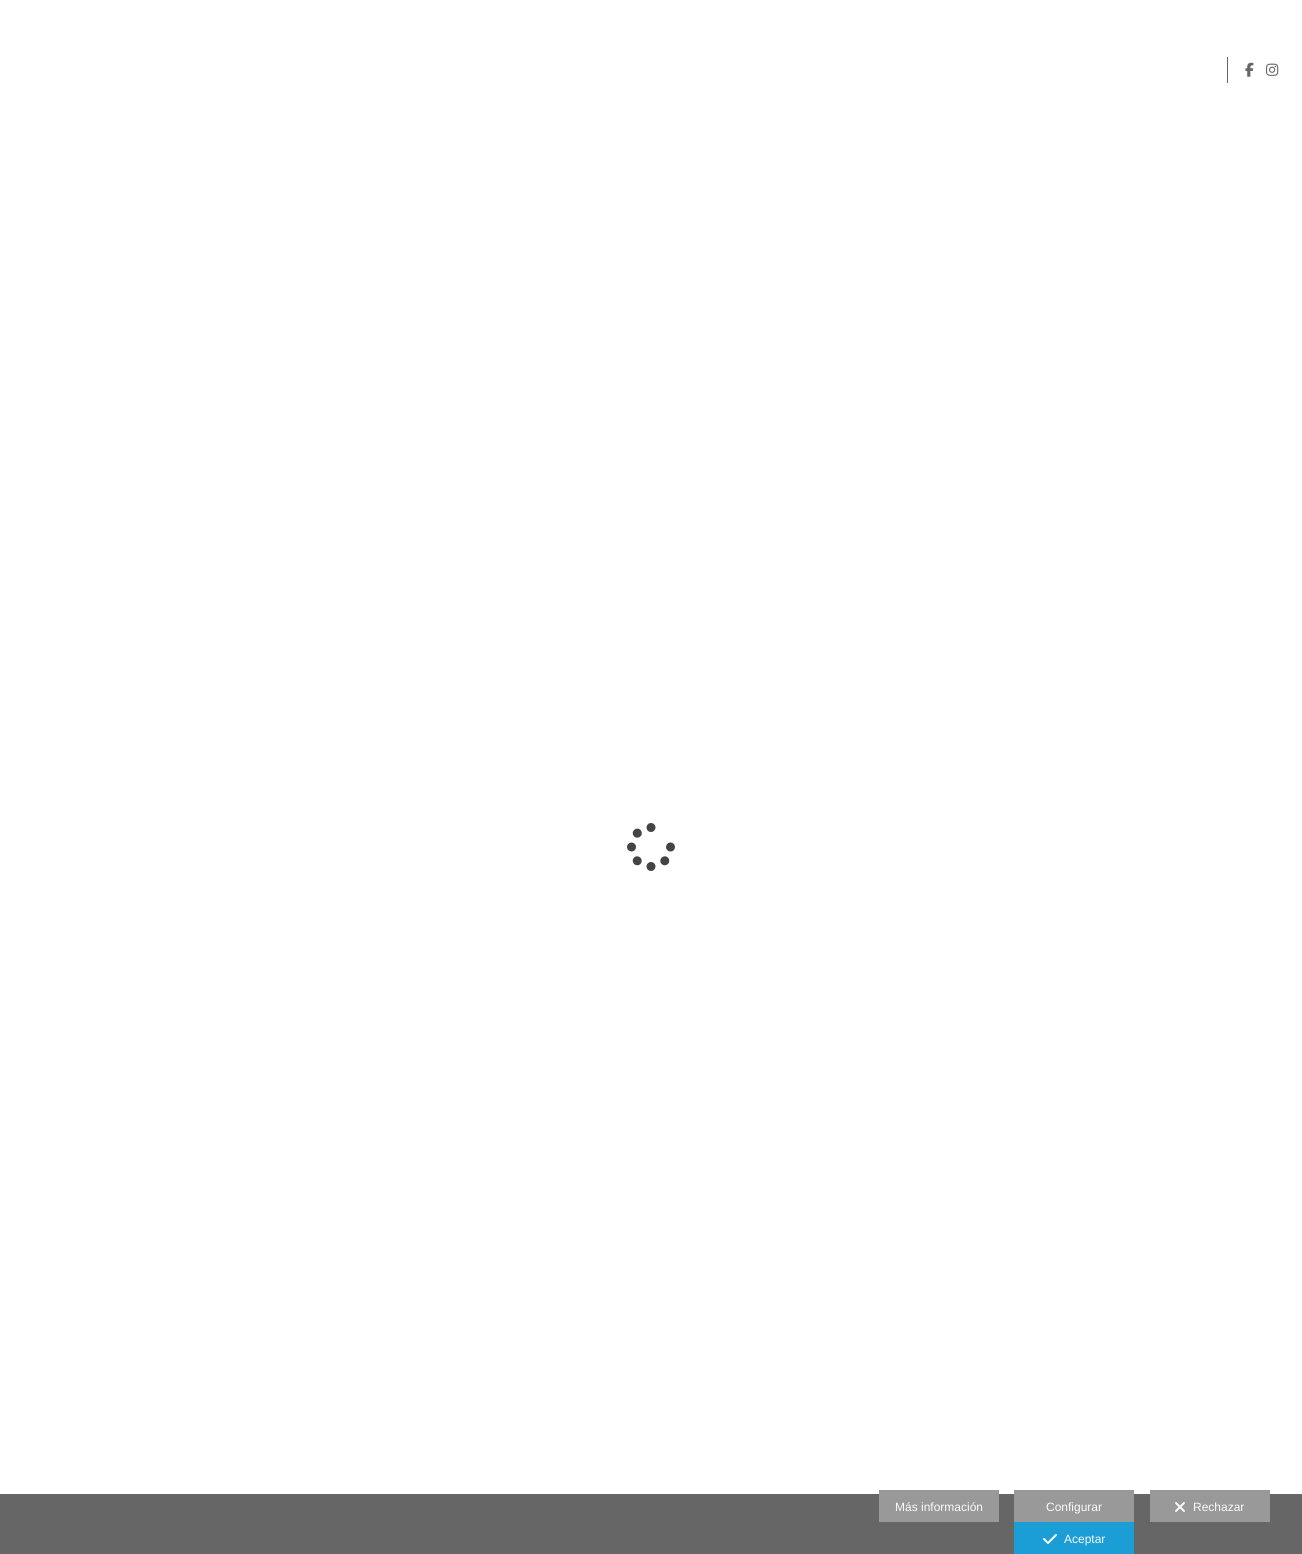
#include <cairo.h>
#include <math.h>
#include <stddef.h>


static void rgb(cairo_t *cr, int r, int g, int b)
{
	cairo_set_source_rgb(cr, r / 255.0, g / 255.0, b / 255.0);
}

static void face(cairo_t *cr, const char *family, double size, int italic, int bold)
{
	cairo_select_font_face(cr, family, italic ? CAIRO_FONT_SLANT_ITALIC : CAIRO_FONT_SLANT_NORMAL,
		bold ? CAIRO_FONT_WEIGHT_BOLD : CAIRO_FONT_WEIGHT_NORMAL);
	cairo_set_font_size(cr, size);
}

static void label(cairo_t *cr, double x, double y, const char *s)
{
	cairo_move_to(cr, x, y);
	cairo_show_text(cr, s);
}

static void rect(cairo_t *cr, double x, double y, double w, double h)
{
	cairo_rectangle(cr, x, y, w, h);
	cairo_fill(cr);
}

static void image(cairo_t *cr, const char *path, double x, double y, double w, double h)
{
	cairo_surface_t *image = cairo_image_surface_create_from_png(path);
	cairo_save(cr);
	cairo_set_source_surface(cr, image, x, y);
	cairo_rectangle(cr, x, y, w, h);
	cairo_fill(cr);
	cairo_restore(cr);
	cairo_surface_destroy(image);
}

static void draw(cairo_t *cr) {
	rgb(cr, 255, 255, 255);
	cairo_paint(cr);
	rgb(cr, 102, 102, 102);
	rect(cr, 1227, 57, 1, 26);
	image(cr, "image0.png", 1245, 62, 9, 15);
	image(cr, "image1.png", 1266, 63, 13, 13);
	image(cr, "image2.png", 627, 823, 48, 48);
	rect(cr, 0, 1494, 1302, 60);
	rgb(cr, 153, 153, 153);
	rect(cr, 879, 1490, 120, 32);
	face(cr, "Liberation Sans", 12, 0, 0);
	rgb(cr, 249, 249, 249);
	label(cr, 895, 1511, "Más información");
	rgb(cr, 153, 153, 153);
	rect(cr, 1014, 1490, 120, 32);
	rgb(cr, 249, 249, 249);
	label(cr, 1046, 1511, "Configurar");
	rgb(cr, 153, 153, 153);
	rect(cr, 1150, 1490, 120, 32);
	image(cr, "image3.png", 1175, 1502, 10, 10);
	rgb(cr, 249, 249, 249);
	label(cr, 1193, 1511, "Rechazar");
	rgb(cr, 26, 158, 213);
	rect(cr, 1014, 1522, 120, 32);
	image(cr, "image4.png", 1043, 1534, 14, 10);
	rgb(cr, 249, 249, 249);
	label(cr, 1064, 1543, "Aceptar");
}

int main(void) {
	cairo_surface_t *surface = cairo_image_surface_create(CAIRO_FORMAT_RGB24, 1302, 1554);
	cairo_t *cr = cairo_create(surface);
	cairo_font_options_t *options = cairo_font_options_create();
	cairo_font_options_set_hint_metrics(options, CAIRO_HINT_METRICS_OFF);
	cairo_font_options_set_hint_style(options, CAIRO_HINT_STYLE_NONE);
	cairo_set_font_options(cr, options);
	cairo_set_miter_limit(cr, 4);
	draw(cr);
	cairo_surface_write_to_png(surface, "render.png");
	cairo_font_options_destroy(options);
	cairo_destroy(cr);
	cairo_surface_destroy(surface);
	return 0;
}
